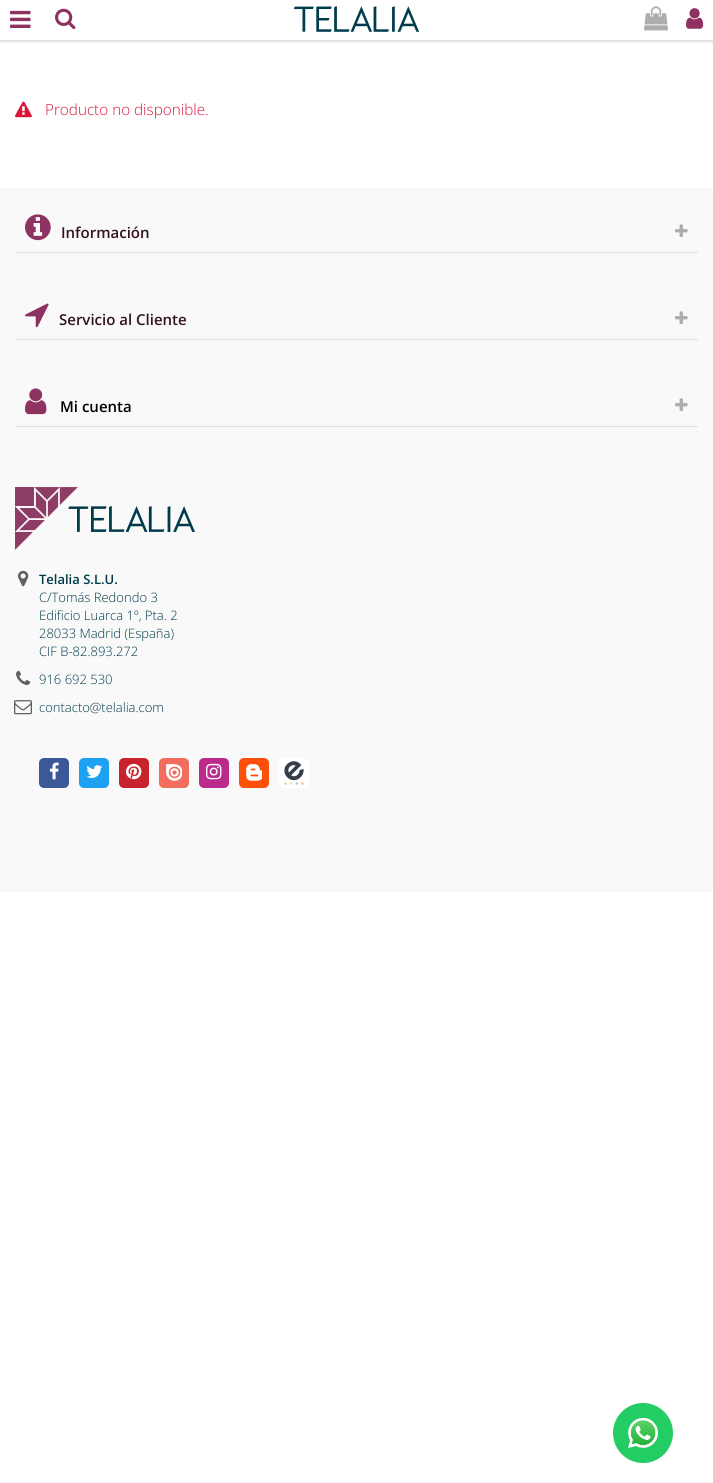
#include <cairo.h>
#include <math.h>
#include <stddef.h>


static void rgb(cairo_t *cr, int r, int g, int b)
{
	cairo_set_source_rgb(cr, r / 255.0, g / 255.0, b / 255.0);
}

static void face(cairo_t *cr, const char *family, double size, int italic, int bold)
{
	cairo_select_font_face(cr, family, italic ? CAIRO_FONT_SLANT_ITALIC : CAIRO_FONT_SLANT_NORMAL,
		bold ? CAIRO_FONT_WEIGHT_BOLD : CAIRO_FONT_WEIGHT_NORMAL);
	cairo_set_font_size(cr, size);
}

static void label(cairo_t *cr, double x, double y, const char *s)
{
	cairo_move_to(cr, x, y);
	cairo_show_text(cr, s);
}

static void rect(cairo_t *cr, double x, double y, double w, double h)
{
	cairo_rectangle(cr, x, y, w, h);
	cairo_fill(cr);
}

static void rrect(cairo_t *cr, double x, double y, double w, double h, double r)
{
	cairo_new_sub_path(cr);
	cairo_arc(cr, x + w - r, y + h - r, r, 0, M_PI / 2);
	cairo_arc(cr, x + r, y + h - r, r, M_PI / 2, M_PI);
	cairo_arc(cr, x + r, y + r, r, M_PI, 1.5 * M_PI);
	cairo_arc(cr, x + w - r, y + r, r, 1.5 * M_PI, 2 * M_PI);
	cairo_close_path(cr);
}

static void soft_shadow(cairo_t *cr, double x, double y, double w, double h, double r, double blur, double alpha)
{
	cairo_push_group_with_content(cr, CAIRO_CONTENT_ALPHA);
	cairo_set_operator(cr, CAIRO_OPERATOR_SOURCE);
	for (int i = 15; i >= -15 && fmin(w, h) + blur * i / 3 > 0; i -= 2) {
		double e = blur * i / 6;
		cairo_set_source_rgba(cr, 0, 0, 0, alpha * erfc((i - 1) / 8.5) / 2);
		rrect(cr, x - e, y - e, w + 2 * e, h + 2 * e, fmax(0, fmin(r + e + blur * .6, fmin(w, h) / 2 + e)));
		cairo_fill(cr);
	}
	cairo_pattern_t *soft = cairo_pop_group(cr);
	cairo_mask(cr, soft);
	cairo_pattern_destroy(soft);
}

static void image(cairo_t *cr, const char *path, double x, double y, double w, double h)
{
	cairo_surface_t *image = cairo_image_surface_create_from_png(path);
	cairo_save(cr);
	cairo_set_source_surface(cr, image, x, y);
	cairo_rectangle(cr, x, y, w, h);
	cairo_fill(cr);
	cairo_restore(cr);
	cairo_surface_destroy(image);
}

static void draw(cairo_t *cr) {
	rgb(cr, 255, 255, 255);
	cairo_paint(cr);
	cairo_save(cr);
	cairo_rectangle(cr, 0, 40, 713, 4);
	cairo_clip(cr);
	rgb(cr, 0, 0, 0);
	soft_shadow(cr, 0, 0, 713, 40, 0, 2.5, 0.3);
	cairo_restore(cr);
	image(cr, "image0.png", 10, 10, 21, 18);
	image(cr, "image1.png", 55, 8, 21, 22);
	image(cr, "image2.png", 293, 6, 127, 26);
	image(cr, "image3.png", 644, 6, 24, 25);
	image(cr, "image4.png", 686, 8, 18, 21);
	image(cr, "image5.png", 15, 101, 17, 17);
	face(cr, "Open Sans Light", 15.25, 0, 0);
	rgb(cr, 220, 20, 60);
	label(cr, 45, 115, "Producto no disponible.");
	rgb(cr, 249, 249, 249);
	rect(cr, 0, 188, 713, 704);
	rgb(cr, 224, 224, 224);
	rect(cr, 15, 252, 683, 1);
	image(cr, "image6.png", 25, 214, 26, 27);
	face(cr, "Open Sans SemiBold", 15, 0, 0);
	rgb(cr, 51, 18, 35);
	label(cr, 61, 238, "Información");
	image(cr, "image7.png", 675, 224, 13, 13);
	rgb(cr, 224, 224, 224);
	rect(cr, 15, 339, 683, 1);
	image(cr, "image8.png", 25, 303, 24, 25);
	rgb(cr, 51, 18, 35);
	label(cr, 59, 325, "Servicio al Cliente");
	image(cr, "image7.png", 675, 311, 13, 13);
	rgb(cr, 224, 224, 224);
	rect(cr, 15, 426, 683, 1);
	image(cr, "image9.png", 25, 388, 22, 27);
	rgb(cr, 0, 0, 0);
	label(cr, 60, 412, "Mi cuenta");
	image(cr, "image7.png", 675, 398, 13, 13);
	image(cr, "image10.png", 15, 487, 180, 63);
	image(cr, "image11.png", 18, 570, 11, 17);
	face(cr, "Open Sans SemiBold", 13, 0, 0);
	rgb(cr, 0, 58, 74);
	label(cr, 39, 584, "Telalia S.L.U.");
	face(cr, "Open Sans Light", 13, 0, 0);
	label(cr, 39, 602, "C/Tomás Redondo 3");
	label(cr, 39, 620, "Edificio Luarca 1º, Pta. 2");
	label(cr, 39, 638, "28033 Madrid (España)");
	label(cr, 39, 656, "CIF B-82.893.272");
	image(cr, "image12.png", 16, 670, 15, 15);
	label(cr, 39, 684, "916 692 530");
	image(cr, "image13.png", 14, 700, 18, 15);
	label(cr, 39, 712, "contacto@telalia.com");
	rgb(cr, 59, 89, 152);
	rrect(cr, 39, 758, 30, 30, 5);
	cairo_fill(cr);
	image(cr, "image14.png", 49, 762, 10, 18);
	rgb(cr, 29, 161, 242);
	rrect(cr, 79, 758, 30, 30, 5);
	cairo_fill(cr);
	image(cr, "image15.png", 86, 765, 17, 13);
	rgb(cr, 200, 35, 44);
	rrect(cr, 119, 758, 30, 30, 5);
	cairo_fill(cr);
	image(cr, "image16.png", 126, 763, 16, 17);
	rgb(cr, 243, 109, 93);
	rrect(cr, 159, 758, 30, 30, 5);
	cairo_fill(cr);
	image(cr, "image17.png", 166, 764, 16, 17);
	rgb(cr, 188, 42, 141);
	rrect(cr, 199, 758, 30, 30, 5);
	cairo_fill(cr);
	image(cr, "image18.png", 206, 763, 16, 17);
	rgb(cr, 252, 79, 8);
	rrect(cr, 239, 758, 30, 30, 5);
	cairo_fill(cr);
	image(cr, "image19.png", 246, 764, 16, 17);
	rgb(cr, 255, 255, 255);
	rrect(cr, 279, 758, 30, 30, 5);
	cairo_fill(cr);
	image(cr, "image20.png", 284, 761, 20, 24);
	rgb(cr, 36, 205, 99);
	cairo_arc(cr, 643, 1433, 30, 0, 2 * M_PI);
	cairo_fill(cr);
	image(cr, "image21.png", 628, 1418, 30, 30);
}

int main(void) {
	cairo_surface_t *surface = cairo_image_surface_create(CAIRO_FORMAT_RGB24, 713, 1483);
	cairo_t *cr = cairo_create(surface);
	cairo_font_options_t *options = cairo_font_options_create();
	cairo_font_options_set_hint_metrics(options, CAIRO_HINT_METRICS_OFF);
	cairo_font_options_set_hint_style(options, CAIRO_HINT_STYLE_NONE);
	cairo_set_font_options(cr, options);
	cairo_set_miter_limit(cr, 4);
	draw(cr);
	cairo_surface_write_to_png(surface, "render.png");
	cairo_font_options_destroy(options);
	cairo_destroy(cr);
	cairo_surface_destroy(surface);
	return 0;
}
